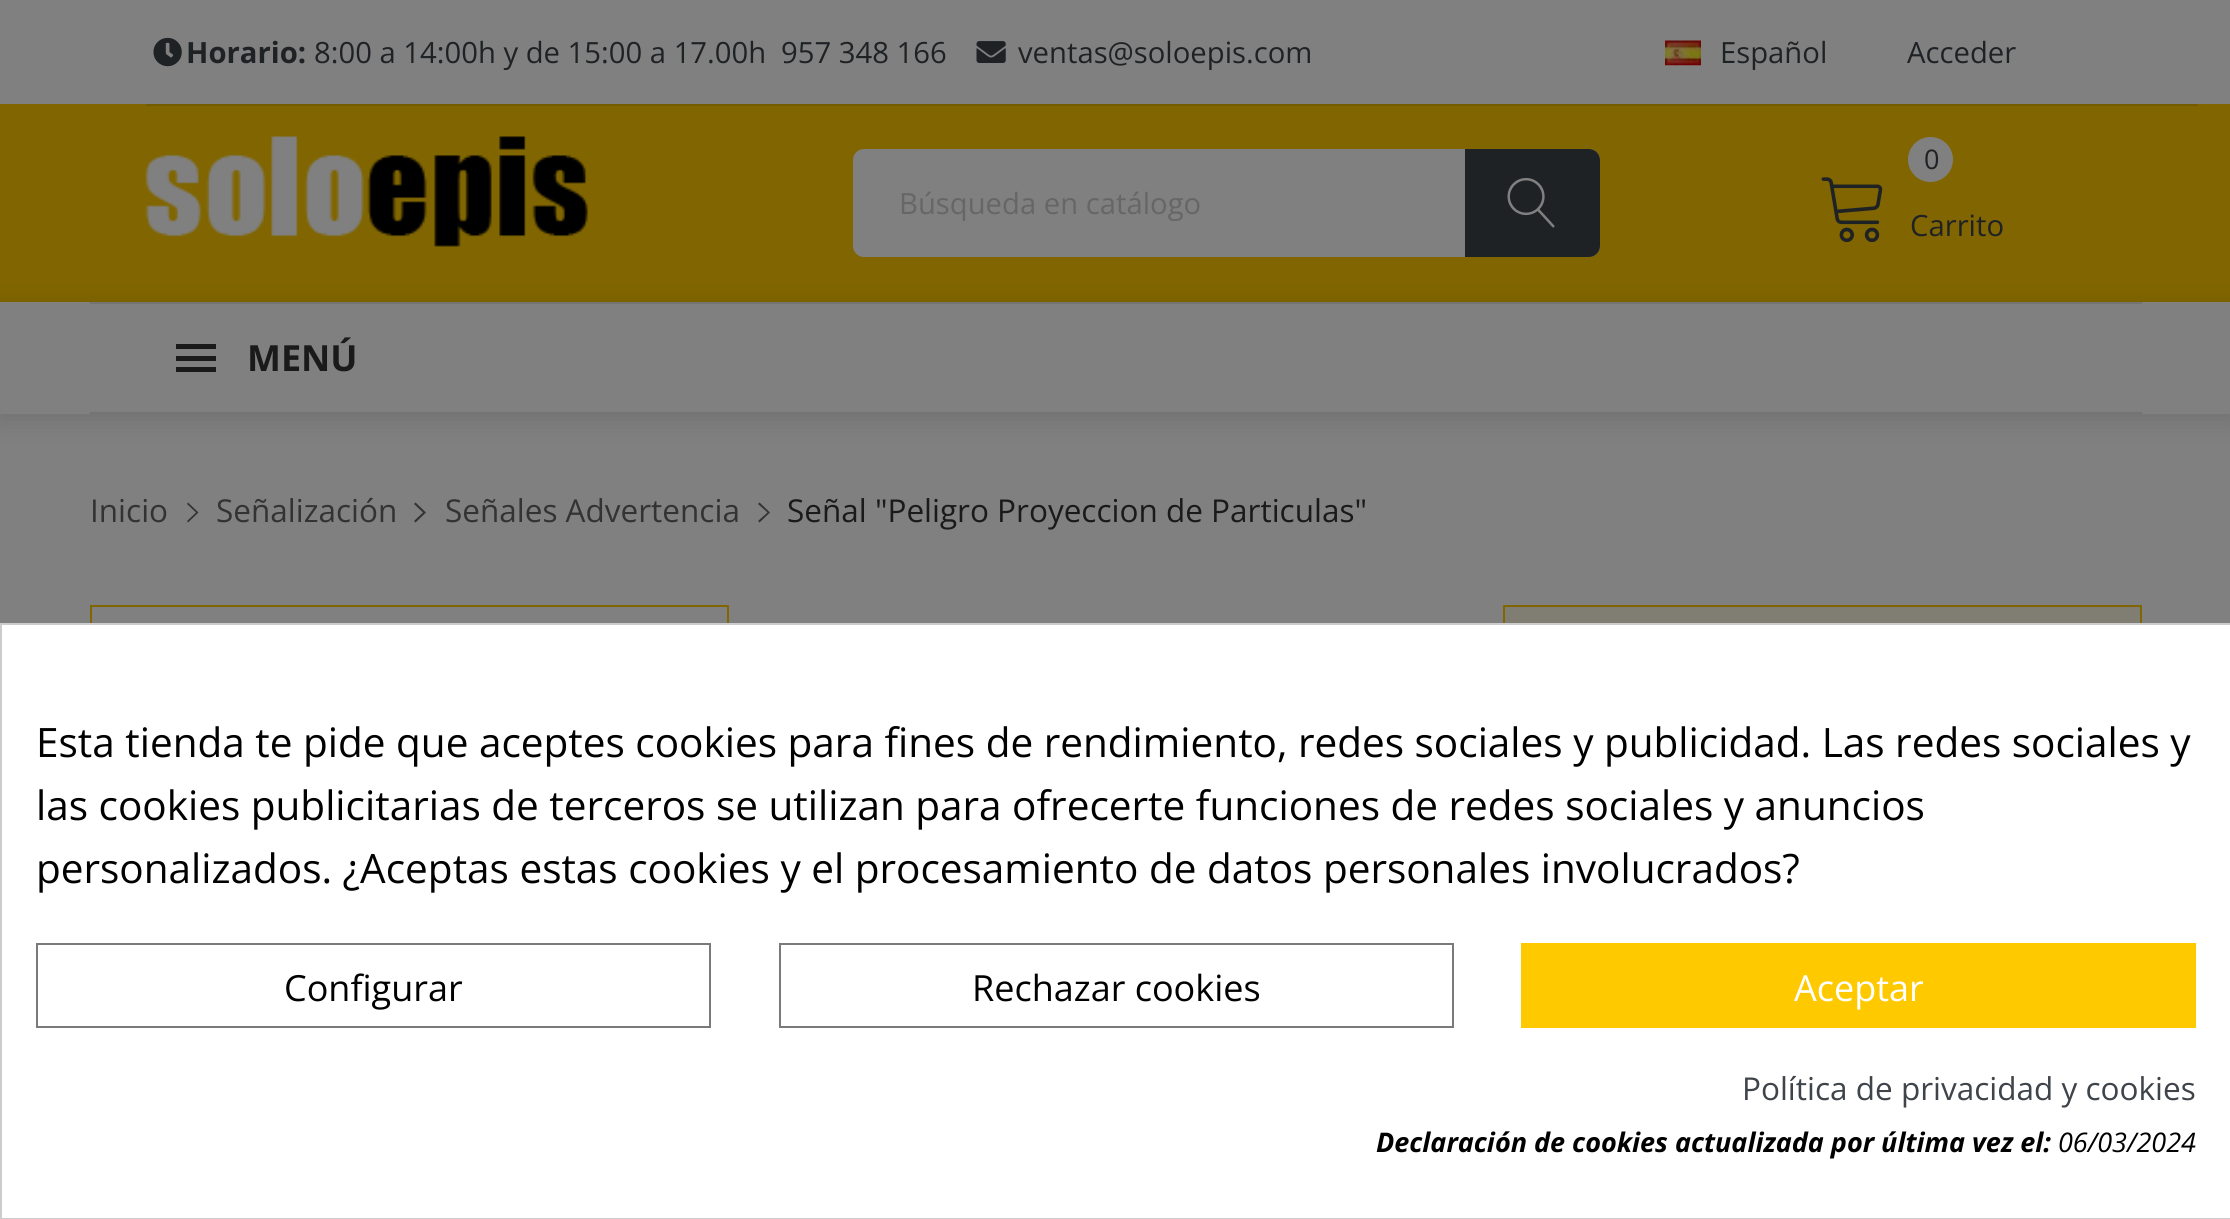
#include <cairo.h>
#include <math.h>
#include <stddef.h>


static void rgb(cairo_t *cr, int r, int g, int b)
{
	cairo_set_source_rgb(cr, r / 255.0, g / 255.0, b / 255.0);
}

static void face(cairo_t *cr, const char *family, double size, int italic, int bold)
{
	cairo_select_font_face(cr, family, italic ? CAIRO_FONT_SLANT_ITALIC : CAIRO_FONT_SLANT_NORMAL,
		bold ? CAIRO_FONT_WEIGHT_BOLD : CAIRO_FONT_WEIGHT_NORMAL);
	cairo_set_font_size(cr, size);
}

static void label(cairo_t *cr, double x, double y, const char *s)
{
	cairo_move_to(cr, x, y);
	cairo_show_text(cr, s);
}

static void rect(cairo_t *cr, double x, double y, double w, double h)
{
	cairo_rectangle(cr, x, y, w, h);
	cairo_fill(cr);
}

static void rrect(cairo_t *cr, double x, double y, double w, double h, double r)
{
	cairo_new_sub_path(cr);
	cairo_arc(cr, x + w - r, y + h - r, r, 0, M_PI / 2);
	cairo_arc(cr, x + r, y + h - r, r, M_PI / 2, M_PI);
	cairo_arc(cr, x + r, y + r, r, M_PI, 1.5 * M_PI);
	cairo_arc(cr, x + w - r, y + r, r, 1.5 * M_PI, 2 * M_PI);
	cairo_close_path(cr);
}

static void soft_shadow(cairo_t *cr, double x, double y, double w, double h, double r, double blur, double alpha)
{
	cairo_push_group_with_content(cr, CAIRO_CONTENT_ALPHA);
	cairo_set_operator(cr, CAIRO_OPERATOR_SOURCE);
	for (int i = 15; i >= -15 && fmin(w, h) + blur * i / 3 > 0; i -= 2) {
		double e = blur * i / 6;
		cairo_set_source_rgba(cr, 0, 0, 0, alpha * erfc((i - 1) / 8.5) / 2);
		rrect(cr, x - e, y - e, w + 2 * e, h + 2 * e, fmax(0, fmin(r + e + blur * .6, fmin(w, h) / 2 + e)));
		cairo_fill(cr);
	}
	cairo_pattern_t *soft = cairo_pop_group(cr);
	cairo_mask(cr, soft);
	cairo_pattern_destroy(soft);
}

static void image(cairo_t *cr, const char *path, double x, double y, double w, double h)
{
	cairo_surface_t *image = cairo_image_surface_create_from_png(path);
	cairo_save(cr);
	cairo_set_source_surface(cr, image, x, y);
	cairo_rectangle(cr, x, y, w, h);
	cairo_fill(cr);
	cairo_restore(cr);
	cairo_surface_destroy(image);
}

static void draw(cairo_t *cr) {
	rgb(cr, 128, 128, 128);
	cairo_paint(cr);
	rgb(cr, 128, 101, 0);
	rect(cr, 0, 104, 2230, 198);
	image(cr, "image0.png", 153, 37, 29, 30);
	face(cr, "Open Sans", 29.25, 0, 1);
	rgb(cr, 31, 34, 37);
	label(cr, 186, 63, "Horario:");
	face(cr, "Open Sans", 29.25, 0, 0);
	label(cr, 314, 63, "8:00 a 14:00h y de 15:00 a 17.00h");
	label(cr, 781, 63, "957 348 166");
	image(cr, "image1.png", 976, 41, 30, 22);
	label(cr, 1018, 63, "ventas@soloepis.com");
	image(cr, "image2.png", 1665, 40, 36, 26);
	label(cr, 1720, 63, "Español");
	label(cr, 1907, 63, "Acceder");
	rgb(cr, 115, 91, 0);
	rect(cr, 146, 104, 2052, 2);
	image(cr, "image3.png", 145, 136, 443, 111);
	rgb(cr, 128, 128, 128);
	rrect(cr, 853, 149, 747, 108, 11);
	cairo_fill(cr);
	rgb(cr, 102, 102, 102);
	label(cr, 899, 214, "Búsqueda en catálogo");
	rgb(cr, 31, 34, 37);
	cairo_new_path(cr);
	cairo_move_to(cr, 1465, 149);
	cairo_line_to(cr, 1589, 149);
	cairo_curve_to(cr, 1595, 149, 1600, 154, 1600, 160);
	cairo_line_to(cr, 1600, 246);
	cairo_curve_to(cr, 1600, 252, 1595, 257, 1589, 257);
	cairo_line_to(cr, 1465, 257);
	cairo_close_path(cr);
	cairo_fill(cr);
	image(cr, "image4.png", 1507, 178, 48, 50);
	rgb(cr, 128, 128, 128);
	cairo_arc(cr, 1930.5, 159.5, 22.5, 0, 2 * M_PI);
	cairo_fill(cr);
	face(cr, "Open Sans", 27, 0, 0);
	rgb(cr, 31, 34, 37);
	label(cr, 1924, 169, "0");
	image(cr, "image5.png", 1821, 177, 62, 66);
	face(cr, "Open Sans", 29.25, 0, 0);
	label(cr, 1910, 236, "Carrito");
	rgb(cr, 0, 0, 0);
	soft_shadow(cr, -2, 306, 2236, 117, 0, 11.5, 0.1);
	rgb(cr, 128, 128, 128);
	rect(cr, 0, 302, 2230, 112);
	rgb(cr, 116, 116, 116);
	rect(cr, 90, 302, 2052, 2);
	rect(cr, 90, 412, 2052, 2);
	rgb(cr, 26, 26, 26);
	rect(cr, 176, 344, 40, 5);
	rect(cr, 176, 356, 40, 5);
	rect(cr, 176, 367, 40, 5);
	face(cr, "Open Sans", 36, 0, 1);
	label(cr, 247, 371, "MENÚ");
	face(cr, "Open Sans", 31.5, 0, 0);
	rgb(cr, 51, 51, 51);
	label(cr, 90, 522, "Inicio");
	cairo_new_path(cr);
	cairo_move_to(cr, 187, 504);
	cairo_line_to(cr, 188, 502.5);
	cairo_line_to(cr, 198.5, 512.5);
	cairo_line_to(cr, 188, 522.5);
	cairo_line_to(cr, 187, 521);
	cairo_line_to(cr, 196, 512.5);
	cairo_close_path(cr);
	cairo_fill(cr);
	label(cr, 216, 522, "Señalización");
	cairo_new_path(cr);
	cairo_move_to(cr, 414, 504);
	cairo_line_to(cr, 415.5, 502.5);
	cairo_line_to(cr, 426, 512.5);
	cairo_line_to(cr, 415.5, 522.5);
	cairo_line_to(cr, 414, 521);
	cairo_line_to(cr, 423, 512.5);
	cairo_close_path(cr);
	cairo_fill(cr);
	label(cr, 445, 522, "Señales Advertencia");
	cairo_new_path(cr);
	cairo_move_to(cr, 758, 504);
	cairo_line_to(cr, 759.5, 502.5);
	cairo_line_to(cr, 770, 512.5);
	cairo_line_to(cr, 759.5, 522.5);
	cairo_line_to(cr, 758, 521);
	cairo_line_to(cr, 767.5, 512.5);
	cairo_close_path(cr);
	cairo_fill(cr);
	rgb(cr, 26, 26, 26);
	label(cr, 787, 522, "Señal \"Peligro Proyeccion de Particulas\"");
	cairo_rectangle(cr, 91, 606, 637, 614);
	rgb(cr, 128, 101, 0);
	cairo_stroke(cr);
	rgb(cr, 128, 125, 114);
	rect(cr, 1505, 607, 635, 16);
	cairo_rectangle(cr, 1504, 606, 637, 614);
	rgb(cr, 128, 101, 0);
	cairo_stroke(cr);
	rgb(cr, 255, 255, 255);
	cairo_rectangle(cr, 1, 624, 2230, 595);
	cairo_fill_preserve(cr);
	rgb(cr, 204, 204, 204);
	cairo_stroke(cr);
	face(cr, "Open Sans", 40.5, 0, 0);
	rgb(cr, 0, 0, 0);
	label(cr, 36, 757, "Esta tienda te pide que aceptes cookies para fines de rendimiento, redes sociales y publicidad. Las redes sociales y");
	label(cr, 36, 820, "las cookies publicitarias de terceros se utilizan para ofrecerte funciones de redes sociales y anuncios");
	label(cr, 36, 883, "personalizados. ¿Aceptas estas cookies y el procesamiento de datos personales involucrados?");
	cairo_rectangle(cr, 37, 944, 673, 83);
	rgb(cr, 122, 122, 122);
	cairo_stroke(cr);
	face(cr, "Open Sans", 36, 0, 0);
	rgb(cr, 0, 0, 0);
	label(cr, 284, 1001, "Configurar");
	cairo_rectangle(cr, 780, 944, 673, 83);
	rgb(cr, 122, 122, 122);
	cairo_stroke(cr);
	rgb(cr, 0, 0, 0);
	label(cr, 972, 1001, "Rechazar cookies");
	rgb(cr, 255, 201, 0);
	rect(cr, 1521, 943, 675, 85);
	rgb(cr, 255, 255, 255);
	label(cr, 1794, 1001, "Aceptar");
	face(cr, "Open Sans", 31.5, 0, 0);
	rgb(cr, 62, 68, 74);
	label(cr, 1742, 1100, "Política de privacidad y cookies");
	face(cr, "Open Sans", 27, 1, 1);
	rgb(cr, 0, 0, 0);
	label(cr, 1376, 1152, "Declaración de cookies actualizada por última vez el:");
	face(cr, "Open Sans", 27, 1, 0);
	label(cr, 2058, 1152, "06/03/2024");
}

int main(void) {
	cairo_surface_t *surface = cairo_image_surface_create(CAIRO_FORMAT_RGB24, 2230, 1219);
	cairo_t *cr = cairo_create(surface);
	cairo_font_options_t *options = cairo_font_options_create();
	cairo_font_options_set_hint_metrics(options, CAIRO_HINT_METRICS_OFF);
	cairo_font_options_set_hint_style(options, CAIRO_HINT_STYLE_NONE);
	cairo_set_font_options(cr, options);
	cairo_set_miter_limit(cr, 4);
	draw(cr);
	cairo_surface_write_to_png(surface, "render.png");
	cairo_font_options_destroy(options);
	cairo_destroy(cr);
	cairo_surface_destroy(surface);
	return 0;
}
